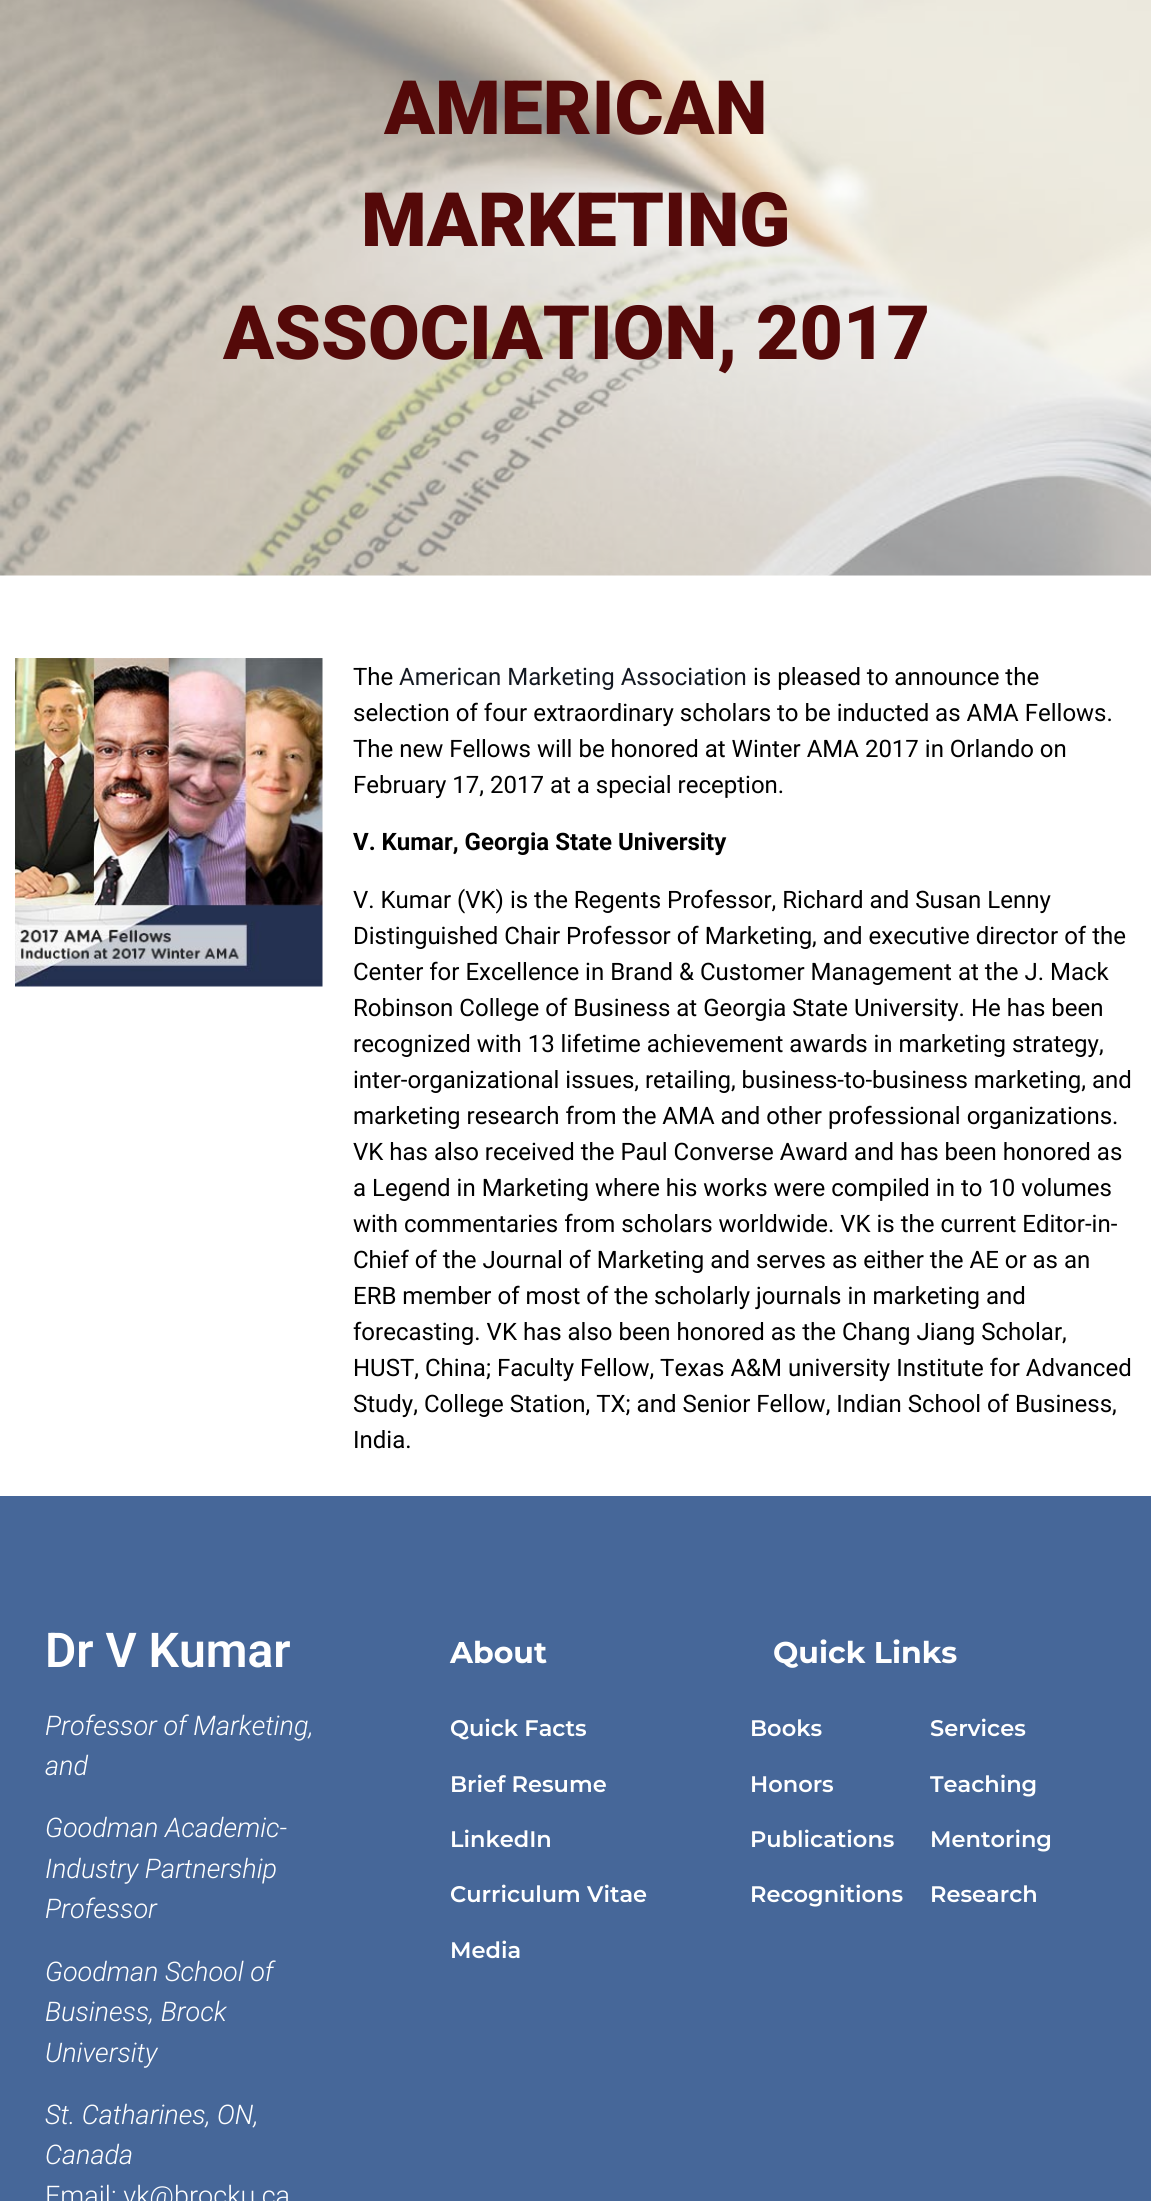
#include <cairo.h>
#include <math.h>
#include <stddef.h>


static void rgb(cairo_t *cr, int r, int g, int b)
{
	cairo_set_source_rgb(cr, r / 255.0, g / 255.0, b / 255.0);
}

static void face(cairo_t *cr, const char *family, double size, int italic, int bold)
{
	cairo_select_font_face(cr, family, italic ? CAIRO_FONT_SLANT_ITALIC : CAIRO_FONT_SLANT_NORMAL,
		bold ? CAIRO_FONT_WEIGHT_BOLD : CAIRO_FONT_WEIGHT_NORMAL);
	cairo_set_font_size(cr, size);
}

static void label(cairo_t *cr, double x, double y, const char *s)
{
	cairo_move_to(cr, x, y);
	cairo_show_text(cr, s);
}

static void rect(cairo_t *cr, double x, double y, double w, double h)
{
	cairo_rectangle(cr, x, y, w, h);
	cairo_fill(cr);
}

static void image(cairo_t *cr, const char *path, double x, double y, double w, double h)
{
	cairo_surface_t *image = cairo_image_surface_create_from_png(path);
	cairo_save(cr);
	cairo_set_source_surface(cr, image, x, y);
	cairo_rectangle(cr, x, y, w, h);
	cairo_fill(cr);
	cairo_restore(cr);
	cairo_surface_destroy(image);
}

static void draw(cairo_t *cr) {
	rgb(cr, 255, 255, 255);
	cairo_paint(cr);
	image(cr, "image0.png", 0, 0, 1151, 576);
	face(cr, "Roboto Black", 75, 0, 0);
	rgb(cr, 84, 9, 9);
	label(cr, 384, 134, "AMERICAN");
	label(cr, 361, 246, "MARKETING");
	label(cr, 223, 359, "ASSOCIATION, 2017");
	image(cr, "image1.png", 15, 658, 308, 329);
	face(cr, "Roboto", 24, 0, 0);
	rgb(cr, 0, 0, 0);
	label(cr, 353, 685, "The");
	rgb(cr, 20, 25, 34);
	label(cr, 399, 685, "American Marketing Association");
	rgb(cr, 0, 0, 0);
	label(cr, 753, 685, "is pleased to announce the");
	label(cr, 353, 721, "selection of four extraordinary scholars to be inducted as AMA Fellows.");
	label(cr, 353, 757, "The new Fellows will be honored at Winter AMA 2017 in Orlando on");
	label(cr, 353, 793, "February 17, 2017 at a special reception.");
	face(cr, "Roboto", 24, 0, 1);
	label(cr, 353, 850, "V. Kumar, Georgia State University");
	face(cr, "Roboto", 24, 0, 0);
	label(cr, 353, 908, "V. Kumar (VK) is the Regents Professor, Richard and Susan Lenny");
	label(cr, 353, 944, "Distinguished Chair Professor of Marketing, and executive director of the");
	label(cr, 353, 980, "Center for Excellence in Brand & Customer Management at the J. Mack");
	label(cr, 353, 1016, "Robinson College of Business at Georgia State University. He has been");
	label(cr, 353, 1052, "recognized with 13 lifetime achievement awards in marketing strategy,");
	label(cr, 353, 1088, "inter-organizational issues, retailing, business-to-business marketing, and");
	label(cr, 353, 1124, "marketing research from the AMA and other professional organizations.");
	label(cr, 353, 1160, "VK has also received the Paul Converse Award and has been honored as");
	label(cr, 353, 1196, "a Legend in Marketing where his works were compiled in to 10 volumes");
	label(cr, 353, 1232, "with commentaries from scholars worldwide. VK is the current Editor-in-");
	label(cr, 353, 1268, "Chief of the Journal of Marketing and serves as either the AE or as an");
	label(cr, 353, 1304, "ERB member of most of the scholarly journals in marketing and");
	label(cr, 353, 1340, "forecasting. VK has also been honored as the Chang Jiang Scholar,");
	label(cr, 353, 1376, "HUST, China; Faculty Fellow, Texas A&M university Institute for Advanced");
	label(cr, 353, 1412, "Study, College Station, TX; and Senior Fellow, Indian School of Business,");
	label(cr, 353, 1448, "India.");
	rgb(cr, 70, 103, 153);
	rect(cr, 0, 1496, 1151, 705);
	face(cr, "Roboto SemiBold", 48, 0, 0);
	rgb(cr, 255, 255, 255);
	label(cr, 45, 1667, "Dr V Kumar");
	face(cr, "Roboto Light", 27, 1, 0);
	label(cr, 45, 1735, "Professor of Marketing,");
	label(cr, 45, 1775, "and");
	label(cr, 45, 1837, "Goodman Academic-");
	label(cr, 45, 1878, "Industry Partnership");
	label(cr, 45, 1918, "Professor");
	label(cr, 45, 1981, "Goodman School of");
	label(cr, 45, 2021, "Business, Brock");
	label(cr, 45, 2062, "University");
	label(cr, 45, 2124, "St. Catharines, ON,");
	label(cr, 45, 2164, "Canada");
	face(cr, "Roboto Light", 27, 0, 0);
	label(cr, 45, 2205, "Email: vk@brocku.ca");
	face(cr, "Montserrat", 30, 0, 1);
	label(cr, 450, 1663, "About");
	face(cr, "Montserrat SemiBold", 22.5, 0, 0);
	label(cr, 450, 1736, "Quick Facts");
	label(cr, 450, 1792, "Brief Resume");
	label(cr, 450, 1847, "LinkedIn");
	label(cr, 450, 1902, "Curriculum Vitae");
	label(cr, 450, 1958, "Media");
	face(cr, "Montserrat", 30, 0, 1);
	label(cr, 773, 1663, "Quick Links");
	face(cr, "Montserrat SemiBold", 22.5, 0, 0);
	label(cr, 750, 1736, "Books");
	label(cr, 750, 1792, "Honors");
	label(cr, 750, 1847, "Publications");
	label(cr, 750, 1902, "Recognitions");
	label(cr, 930, 1736, "Services");
	label(cr, 930, 1792, "Teaching");
	label(cr, 930, 1847, "Mentoring");
	label(cr, 930, 1902, "Research");
}

int main(void) {
	cairo_surface_t *surface = cairo_image_surface_create(CAIRO_FORMAT_RGB24, 1151, 2201);
	cairo_t *cr = cairo_create(surface);
	cairo_font_options_t *options = cairo_font_options_create();
	cairo_font_options_set_hint_metrics(options, CAIRO_HINT_METRICS_OFF);
	cairo_font_options_set_hint_style(options, CAIRO_HINT_STYLE_NONE);
	cairo_set_font_options(cr, options);
	cairo_set_miter_limit(cr, 4);
	draw(cr);
	cairo_surface_write_to_png(surface, "render.png");
	cairo_font_options_destroy(options);
	cairo_destroy(cr);
	cairo_surface_destroy(surface);
	return 0;
}
